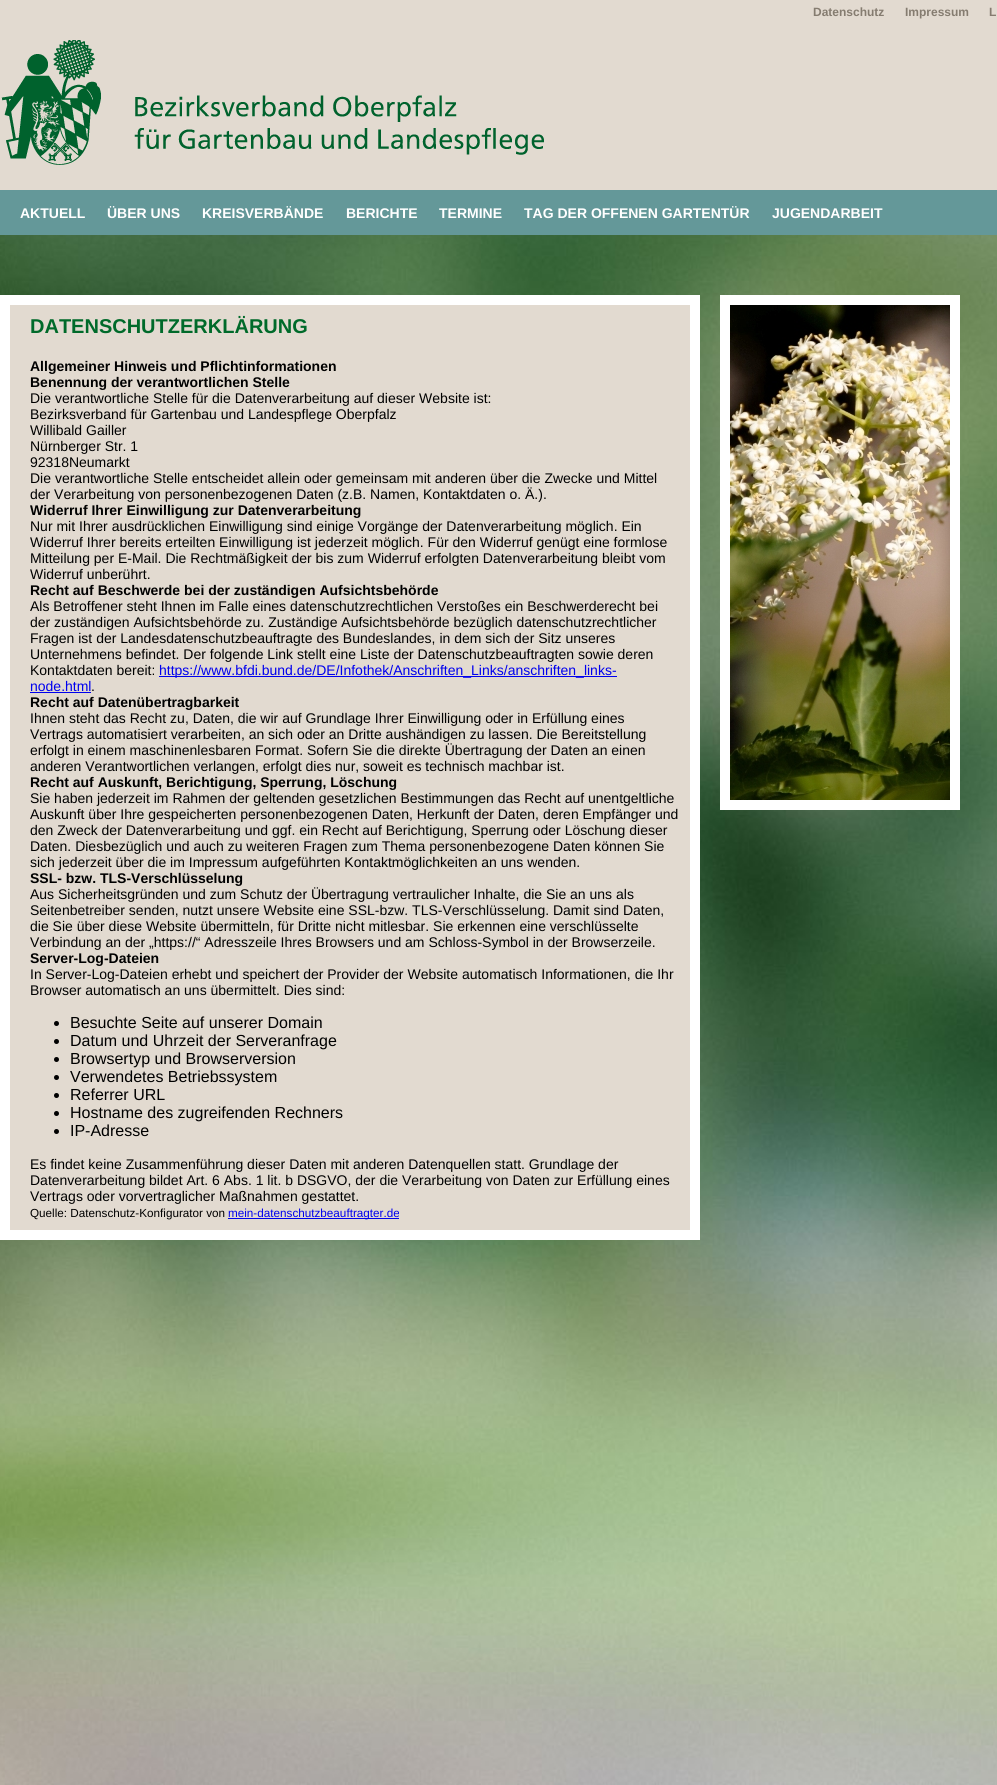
#include <cairo.h>
#include <math.h>
#include <stddef.h>


static void rgb(cairo_t *cr, int r, int g, int b)
{
	cairo_set_source_rgb(cr, r / 255.0, g / 255.0, b / 255.0);
}

static void face(cairo_t *cr, const char *family, double size, int italic, int bold)
{
	cairo_select_font_face(cr, family, italic ? CAIRO_FONT_SLANT_ITALIC : CAIRO_FONT_SLANT_NORMAL,
		bold ? CAIRO_FONT_WEIGHT_BOLD : CAIRO_FONT_WEIGHT_NORMAL);
	cairo_set_font_size(cr, size);
}

static void label(cairo_t *cr, double x, double y, const char *s)
{
	cairo_move_to(cr, x, y);
	cairo_show_text(cr, s);
}

static void rect(cairo_t *cr, double x, double y, double w, double h)
{
	cairo_rectangle(cr, x, y, w, h);
	cairo_fill(cr);
}

static void image(cairo_t *cr, const char *path, double x, double y, double w, double h)
{
	cairo_surface_t *image = cairo_image_surface_create_from_png(path);
	cairo_save(cr);
	cairo_set_source_surface(cr, image, x, y);
	cairo_rectangle(cr, x, y, w, h);
	cairo_fill(cr);
	cairo_restore(cr);
	cairo_surface_destroy(image);
}

static void draw(cairo_t *cr) {
	rgb(cr, 255, 255, 255);
	cairo_paint(cr);
	rgb(cr, 226, 218, 208);
	rect(cr, 0, 0, 997, 190);
	image(cr, "image0.png", 1, 40, 543, 125);
	face(cr, "Liberation Sans", 12, 0, 1);
	rgb(cr, 133, 124, 112);
	label(cr, 813, 16, "Datenschutz");
	label(cr, 905, 16, "Impressum");
	label(cr, 989, 16, "L");
	rgb(cr, 100, 152, 153);
	rect(cr, 0, 190, 997, 45);
	face(cr, "Liberation Sans", 14, 0, 1);
	rgb(cr, 255, 255, 255);
	label(cr, 20, 218, "AKTUELL");
	label(cr, 107, 218, "ÜBER UNS");
	label(cr, 202, 218, "KREISVERBÄNDE");
	label(cr, 346, 218, "BERICHTE");
	label(cr, 439, 218, "TERMINE");
	label(cr, 524, 218, "TAG DER OFFENEN GARTENTÜR");
	label(cr, 772, 218, "JUGENDARBEIT");
	image(cr, "image2.png", 0, 235, 997, 1550);
	rgb(cr, 226, 218, 208);
	cairo_rectangle(cr, 5, 300, 690, 935);
	cairo_fill_preserve(cr);
	rgb(cr, 255, 255, 255);
	cairo_set_line_width(cr, 10);
	cairo_stroke(cr);
	face(cr, "Liberation Sans", 20, 0, 1);
	rgb(cr, 0, 106, 42);
	label(cr, 30, 333, "DATENSCHUTZERKLÄRUNG");
	face(cr, "Liberation Sans", 14, 0, 1);
	rgb(cr, 0, 0, 0);
	label(cr, 30, 371, "Allgemeiner Hinweis und Pflichtinformationen");
	label(cr, 30, 387, "Benennung der verantwortlichen Stelle");
	face(cr, "Liberation Sans", 14, 0, 0);
	label(cr, 30, 403, "Die verantwortliche Stelle für die Datenverarbeitung auf dieser Website ist:");
	label(cr, 30, 419, "Bezirksverband für Gartenbau und Landespflege Oberpfalz");
	label(cr, 30, 435, "Willibald Gailler");
	label(cr, 30, 451, "Nürnberger Str. 1");
	label(cr, 30, 467, "92318Neumarkt");
	label(cr, 30, 483, "Die verantwortliche Stelle entscheidet allein oder gemeinsam mit anderen über die Zwecke und Mittel");
	label(cr, 30, 499, "der Verarbeitung von personenbezogenen Daten (z.B. Namen, Kontaktdaten o. Ä.).");
	face(cr, "Liberation Sans", 14, 0, 1);
	label(cr, 30, 515, "Widerruf Ihrer Einwilligung zur Datenverarbeitung");
	face(cr, "Liberation Sans", 14, 0, 0);
	label(cr, 30, 531, "Nur mit Ihrer ausdrücklichen Einwilligung sind einige Vorgänge der Datenverarbeitung möglich. Ein");
	label(cr, 30, 547, "Widerruf Ihrer bereits erteilten Einwilligung ist jederzeit möglich. Für den Widerruf genügt eine formlose");
	label(cr, 30, 563, "Mitteilung per E-Mail. Die Rechtmäßigkeit der bis zum Widerruf erfolgten Datenverarbeitung bleibt vom");
	label(cr, 30, 579, "Widerruf unberührt.");
	face(cr, "Liberation Sans", 14, 0, 1);
	label(cr, 30, 595, "Recht auf Beschwerde bei der zuständigen Aufsichtsbehörde");
	face(cr, "Liberation Sans", 14, 0, 0);
	label(cr, 30, 611, "Als Betroffener steht Ihnen im Falle eines datenschutzrechtlichen Verstoßes ein Beschwerderecht bei");
	label(cr, 30, 627, "der zuständigen Aufsichtsbehörde zu. Zuständige Aufsichtsbehörde bezüglich datenschutzrechtlicher");
	label(cr, 30, 643, "Fragen ist der Landesdatenschutzbeauftragte des Bundeslandes, in dem sich der Sitz unseres");
	label(cr, 30, 659, "Unternehmens befindet. Der folgende Link stellt eine Liste der Datenschutzbeauftragten sowie deren");
	label(cr, 30, 675, "Kontaktdaten bereit:");
	rgb(cr, 0, 0, 238);
	rect(cr, 159, 676, 458, 1);
	label(cr, 159, 675, "https://www.bfdi.bund.de/DE/Infothek/Anschriften_Links/anschriften_links-");
	label(cr, 30, 691, "node.html");
	rect(cr, 30, 692, 61, 1);
	rgb(cr, 0, 0, 0);
	label(cr, 91, 691, ".");
	face(cr, "Liberation Sans", 14, 0, 1);
	label(cr, 30, 707, "Recht auf Datenübertragbarkeit");
	face(cr, "Liberation Sans", 14, 0, 0);
	label(cr, 30, 723, "Ihnen steht das Recht zu, Daten, die wir auf Grundlage Ihrer Einwilligung oder in Erfüllung eines");
	label(cr, 30, 739, "Vertrags automatisiert verarbeiten, an sich oder an Dritte aushändigen zu lassen. Die Bereitstellung");
	label(cr, 30, 755, "erfolgt in einem maschinenlesbaren Format. Sofern Sie die direkte Übertragung der Daten an einen");
	label(cr, 30, 771, "anderen Verantwortlichen verlangen, erfolgt dies nur, soweit es technisch machbar ist.");
	face(cr, "Liberation Sans", 14, 0, 1);
	label(cr, 30, 787, "Recht auf Auskunft, Berichtigung, Sperrung, Löschung");
	face(cr, "Liberation Sans", 14, 0, 0);
	label(cr, 30, 803, "Sie haben jederzeit im Rahmen der geltenden gesetzlichen Bestimmungen das Recht auf unentgeltliche");
	label(cr, 30, 819, "Auskunft über Ihre gespeicherten personenbezogenen Daten, Herkunft der Daten, deren Empfänger und");
	label(cr, 30, 835, "den Zweck der Datenverarbeitung und ggf. ein Recht auf Berichtigung, Sperrung oder Löschung dieser");
	label(cr, 30, 851, "Daten. Diesbezüglich und auch zu weiteren Fragen zum Thema personenbezogene Daten können Sie");
	label(cr, 30, 867, "sich jederzeit über die im Impressum aufgeführten Kontaktmöglichkeiten an uns wenden.");
	face(cr, "Liberation Sans", 14, 0, 1);
	label(cr, 30, 883, "SSL- bzw. TLS-Verschlüsselung");
	face(cr, "Liberation Sans", 14, 0, 0);
	label(cr, 30, 899, "Aus Sicherheitsgründen und zum Schutz der Übertragung vertraulicher Inhalte, die Sie an uns als");
	label(cr, 30, 915, "Seitenbetreiber senden, nutzt unsere Website eine SSL-bzw. TLS-Verschlüsselung. Damit sind Daten,");
	label(cr, 30, 931, "die Sie über diese Website übermitteln, für Dritte nicht mitlesbar. Sie erkennen eine verschlüsselte");
	label(cr, 30, 947, "Verbindung an der „https://“ Adresszeile Ihres Browsers und am Schloss-Symbol in der Browserzeile.");
	face(cr, "Liberation Sans", 14, 0, 1);
	label(cr, 30, 963, "Server-Log-Dateien");
	face(cr, "Liberation Sans", 14, 0, 0);
	label(cr, 30, 979, "In Server-Log-Dateien erhebt und speichert der Provider der Website automatisch Informationen, die Ihr");
	label(cr, 30, 995, "Browser automatisch an uns übermittelt. Dies sind:");
	cairo_new_path(cr);
	cairo_arc(cr, 56.5, 1023.5, 2.5, 0, 2 * M_PI);
	cairo_fill(cr);
	face(cr, "Liberation Sans", 16, 0, 0);
	label(cr, 70, 1028, "Besuchte Seite auf unserer Domain");
	cairo_new_path(cr);
	cairo_arc(cr, 56.5, 1041.5, 2.5, 0, 2 * M_PI);
	cairo_fill(cr);
	label(cr, 70, 1046, "Datum und Uhrzeit der Serveranfrage");
	cairo_new_path(cr);
	cairo_arc(cr, 56.5, 1059.5, 2.5, 0, 2 * M_PI);
	cairo_fill(cr);
	label(cr, 70, 1064, "Browsertyp und Browserversion");
	cairo_new_path(cr);
	cairo_arc(cr, 56.5, 1077.5, 2.5, 0, 2 * M_PI);
	cairo_fill(cr);
	label(cr, 70, 1082, "Verwendetes Betriebssystem");
	cairo_new_path(cr);
	cairo_arc(cr, 56.5, 1095.5, 2.5, 0, 2 * M_PI);
	cairo_fill(cr);
	label(cr, 70, 1100, "Referrer URL");
	cairo_new_path(cr);
	cairo_arc(cr, 56.5, 1113.5, 2.5, 0, 2 * M_PI);
	cairo_fill(cr);
	label(cr, 70, 1118, "Hostname des zugreifenden Rechners");
	cairo_new_path(cr);
	cairo_arc(cr, 56.5, 1131.5, 2.5, 0, 2 * M_PI);
	cairo_fill(cr);
	label(cr, 70, 1136, "IP-Adresse");
	face(cr, "Liberation Sans", 14, 0, 0);
	label(cr, 30, 1169, "Es findet keine Zusammenführung dieser Daten mit anderen Datenquellen statt. Grundlage der");
	label(cr, 30, 1185, "Datenverarbeitung bildet Art. 6 Abs. 1 lit. b DSGVO, der die Verarbeitung von Daten zur Erfüllung eines");
	label(cr, 30, 1201, "Vertrags oder vorvertraglicher Maßnahmen gestattet.");
	face(cr, "Liberation Sans", 11.7, 0, 0);
	label(cr, 30, 1217, "Quelle: Datenschutz-Konfigurator von");
	rgb(cr, 0, 0, 238);
	rect(cr, 228, 1218, 171, 1);
	label(cr, 228, 1217, "mein-datenschutzbeauftragter.de");
	cairo_rectangle(cr, 725, 300, 230, 505);
	rgb(cr, 255, 255, 255);
	cairo_stroke(cr);
	image(cr, "image1.png", 730, 305, 220, 495);
}

int main(void) {
	cairo_surface_t *surface = cairo_image_surface_create(CAIRO_FORMAT_RGB24, 997, 1785);
	cairo_t *cr = cairo_create(surface);
	cairo_font_options_t *options = cairo_font_options_create();
	cairo_font_options_set_hint_metrics(options, CAIRO_HINT_METRICS_OFF);
	cairo_font_options_set_hint_style(options, CAIRO_HINT_STYLE_NONE);
	cairo_set_font_options(cr, options);
	cairo_set_miter_limit(cr, 4);
	draw(cr);
	cairo_surface_write_to_png(surface, "render.png");
	cairo_font_options_destroy(options);
	cairo_destroy(cr);
	cairo_surface_destroy(surface);
	return 0;
}
